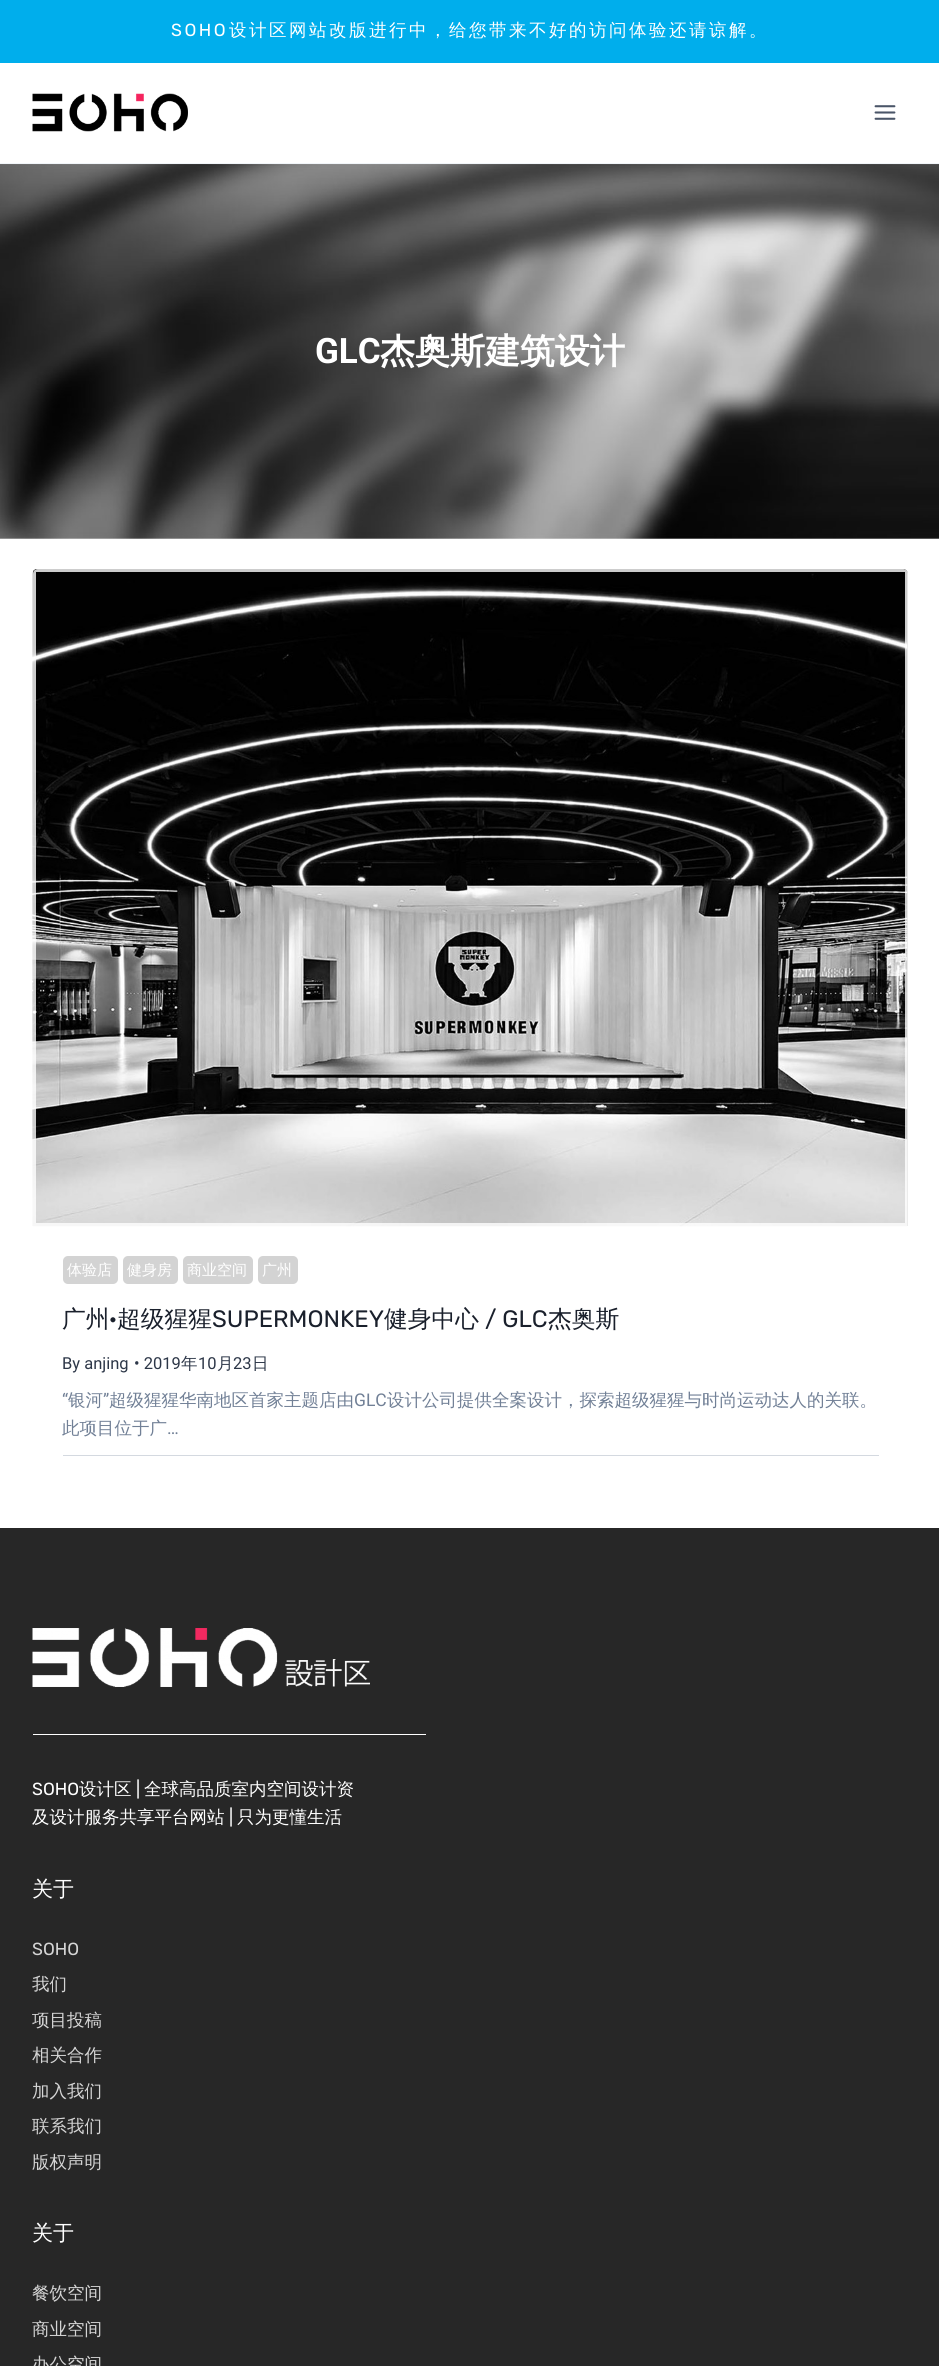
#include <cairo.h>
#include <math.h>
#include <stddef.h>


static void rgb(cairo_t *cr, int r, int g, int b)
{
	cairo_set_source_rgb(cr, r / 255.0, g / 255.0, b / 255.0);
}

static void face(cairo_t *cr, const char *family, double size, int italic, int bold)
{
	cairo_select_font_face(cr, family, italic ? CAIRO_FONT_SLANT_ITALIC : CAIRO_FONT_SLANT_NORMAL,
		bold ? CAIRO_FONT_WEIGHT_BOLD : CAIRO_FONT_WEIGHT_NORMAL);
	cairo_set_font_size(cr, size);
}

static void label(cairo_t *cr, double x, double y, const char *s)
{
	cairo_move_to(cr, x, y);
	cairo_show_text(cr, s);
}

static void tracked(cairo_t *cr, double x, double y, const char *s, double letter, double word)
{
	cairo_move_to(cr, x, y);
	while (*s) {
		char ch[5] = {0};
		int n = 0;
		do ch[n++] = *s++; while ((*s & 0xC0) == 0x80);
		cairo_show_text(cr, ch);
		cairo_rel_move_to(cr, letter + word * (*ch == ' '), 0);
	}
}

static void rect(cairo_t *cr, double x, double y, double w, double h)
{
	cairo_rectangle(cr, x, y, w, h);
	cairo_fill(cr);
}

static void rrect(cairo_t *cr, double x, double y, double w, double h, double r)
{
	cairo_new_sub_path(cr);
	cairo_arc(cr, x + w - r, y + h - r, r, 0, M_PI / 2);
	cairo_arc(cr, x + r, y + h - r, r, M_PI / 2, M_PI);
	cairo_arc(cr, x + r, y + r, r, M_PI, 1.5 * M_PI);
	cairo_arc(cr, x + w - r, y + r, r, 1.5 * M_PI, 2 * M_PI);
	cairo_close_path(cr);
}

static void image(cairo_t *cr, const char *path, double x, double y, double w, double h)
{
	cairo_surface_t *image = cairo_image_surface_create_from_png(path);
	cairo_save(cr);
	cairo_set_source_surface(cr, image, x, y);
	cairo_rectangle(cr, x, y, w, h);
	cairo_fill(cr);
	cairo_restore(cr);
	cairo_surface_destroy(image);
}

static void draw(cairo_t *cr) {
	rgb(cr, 255, 255, 255);
	cairo_paint(cr);
	rgb(cr, 0, 174, 236);
	rect(cr, 0, 0, 939, 63);
	face(cr, "Rubik Light", 17.5, 0, 0);
	rgb(cr, 255, 255, 255);
	tracked(cr, 171, 36, "SOHO", 2.5, 0);
	face(cr, "WenQuanYi Zen Hei Medium", 17.5, 0, 0);
	tracked(cr, 229, 36, "设计区网站改版进行中，给您带来不好的访问体验还请谅解。", 2.5, 0);
	rgb(cr, 241, 245, 249);
	rect(cr, 0, 163, 939, 1);
	image(cr, "image0.png", 32, 93, 156, 39);
	image(cr, "image1.png", 874, 105, 22, 15);
	image(cr, "image2.png", 0, 164, 939, 375);
	face(cr, "Roboto", 35, 0, 1);
	rgb(cr, 255, 255, 255);
	label(cr, 315, 363, "GLC");
	face(cr, "WenQuanYi Zen Hei", 35, 0, 1);
	label(cr, 380, 363, "杰奥斯建筑设计");
	rgb(cr, 153, 153, 153);
	cairo_new_path(cr);
	cairo_move_to(cr, 38, 569);
	cairo_line_to(cr, 903, 569);
	cairo_curve_to(cr, 906, 569, 908, 571, 908, 574);
	cairo_line_to(cr, 908, 1226);
	cairo_line_to(cr, 33, 1226);
	cairo_line_to(cr, 33, 574);
	cairo_curve_to(cr, 33, 571, 35, 569, 38, 569);
	cairo_close_path(cr);
	cairo_fill(cr);
	image(cr, "image3.png", 32, 569, 876, 658);
	cairo_set_source_rgba(cr, 1, 1, 1, 0.8);
	cairo_set_fill_rule(cr, CAIRO_FILL_RULE_EVEN_ODD);
	cairo_new_path(cr);
	cairo_move_to(cr, 38, 569);
	cairo_curve_to(cr, 35, 569, 33, 571, 33, 574);
	cairo_line_to(cr, 33, 1226);
	cairo_line_to(cr, 908, 1226);
	cairo_line_to(cr, 908, 574);
	cairo_curve_to(cr, 908, 571, 906, 569, 903, 569);
	cairo_close_path(cr);
	cairo_move_to(cr, 36, 572);
	cairo_line_to(cr, 36, 1223);
	cairo_line_to(cr, 905, 1223);
	cairo_line_to(cr, 905, 572);
	cairo_close_path(cr);
	cairo_fill(cr);
	rgb(cr, 211, 211, 211);
	rrect(cr, 63, 1256, 55, 28, 5);
	cairo_fill(cr);
	face(cr, "WenQuanYi Zen Hei Medium", 15, 0, 0);
	rgb(cr, 255, 255, 255);
	label(cr, 67, 1275, "体验店");
	rgb(cr, 211, 211, 211);
	rrect(cr, 123, 1256, 55, 28, 5);
	cairo_fill(cr);
	rgb(cr, 255, 255, 255);
	label(cr, 127, 1275, "健身房");
	rgb(cr, 211, 211, 211);
	rrect(cr, 183, 1256, 70, 28, 5);
	cairo_fill(cr);
	rgb(cr, 255, 255, 255);
	label(cr, 187, 1275, "商业空间");
	rgb(cr, 211, 211, 211);
	rrect(cr, 258, 1256, 40, 28, 5);
	cairo_fill(cr);
	rgb(cr, 255, 255, 255);
	label(cr, 262, 1275, "广州");
	face(cr, "WenQuanYi Zen Hei Medium", 23.75, 0, 0);
	rgb(cr, 26, 32, 44);
	label(cr, 62, 1327, "广州");
	face(cr, "Rubik Light", 23.75, 0, 0);
	label(cr, 109, 1327, "·");
	face(cr, "WenQuanYi Zen Hei Medium", 23.75, 0, 0);
	label(cr, 117, 1327, "超级猩猩");
	face(cr, "Rubik Light", 23.75, 0, 0);
	label(cr, 212, 1327, "SUPERMONKEY");
	face(cr, "WenQuanYi Zen Hei Medium", 23.75, 0, 0);
	label(cr, 384, 1327, "健身中心");
	face(cr, "Rubik Light", 23.75, 0, 0);
	label(cr, 485, 1327, "/ GLC");
	face(cr, "WenQuanYi Zen Hei Medium", 23.75, 0, 0);
	label(cr, 548, 1327, "杰奥斯");
	face(cr, "Roboto", 16.5, 0, 0);
	rgb(cr, 45, 55, 72);
	label(cr, 62, 1369, "By anjing");
	label(cr, 134, 1369, "• 2019");
	face(cr, "WenQuanYi Zen Hei Medium", 16.5, 0, 0);
	label(cr, 181, 1369, "年");
	face(cr, "Roboto", 16.5, 0, 0);
	label(cr, 198, 1369, "10");
	face(cr, "WenQuanYi Zen Hei Medium", 16.5, 0, 0);
	label(cr, 217, 1369, "月");
	face(cr, "Roboto", 16.5, 0, 0);
	label(cr, 233, 1369, "23");
	face(cr, "WenQuanYi Zen Hei Medium", 16.5, 0, 0);
	label(cr, 252, 1369, "日");
	face(cr, "Roboto", 17.5, 0, 0);
	rgb(cr, 113, 128, 150);
	label(cr, 62, 1406, "“");
	face(cr, "WenQuanYi Zen Hei Medium", 17.5, 0, 0);
	label(cr, 68, 1406, "银河");
	face(cr, "Roboto", 17.5, 0, 0);
	label(cr, 103, 1406, "”");
	face(cr, "WenQuanYi Zen Hei Medium", 17.5, 0, 0);
	label(cr, 109, 1406, "超级猩猩华南地区首家主题店由");
	face(cr, "Roboto", 17.5, 0, 0);
	label(cr, 354, 1406, "GLC");
	face(cr, "WenQuanYi Zen Hei Medium", 17.5, 0, 0);
	label(cr, 387, 1406, "设计公司提供全案设计，探索超级猩猩与时尚运动达人的关联。");
	label(cr, 62, 1434, "此项目位于广");
	face(cr, "Roboto", 17.5, 0, 0);
	label(cr, 167, 1434, "…");
	rgb(cr, 212, 217, 224);
	rect(cr, 63, 1455, 816, 1);
	rgb(cr, 39, 39, 39);
	rect(cr, 0, 1528, 939, 838);
	image(cr, "image4.png", 32, 1628, 338, 59);
	rgb(cr, 255, 255, 255);
	rect(cr, 33, 1734, 393, 1);
	face(cr, "Rubik Light", 17.5, 0, 0);
	label(cr, 32, 1795, "SOHO");
	face(cr, "WenQuanYi Zen Hei Medium", 17.5, 0, 0);
	label(cr, 79, 1795, "设计区");
	face(cr, "Rubik Light", 17.5, 0, 0);
	label(cr, 136, 1795, "|");
	face(cr, "WenQuanYi Zen Hei Medium", 17.5, 0, 0);
	label(cr, 144, 1795, "全球高品质室内空间设计资");
	label(cr, 32, 1823, "及设计服务共享平台网站");
	face(cr, "Rubik Light", 17.5, 0, 0);
	label(cr, 229, 1823, "|");
	face(cr, "WenQuanYi Zen Hei Medium", 17.5, 0, 0);
	label(cr, 237, 1823, "只为更懂生活");
	face(cr, "WenQuanYi Zen Hei Medium", 21, 0, 0);
	label(cr, 32, 1896, "关于");
	face(cr, "Rubik Light", 17.5, 0, 0);
	rgb(cr, 213, 213, 213);
	label(cr, 32, 1955, "SOHO");
	face(cr, "WenQuanYi Zen Hei Medium", 17.5, 0, 0);
	label(cr, 32, 1990, "我们");
	label(cr, 32, 2026, "项目投稿");
	label(cr, 32, 2061, "相关合作");
	label(cr, 32, 2097, "加入我们");
	label(cr, 32, 2132, "联系我们");
	label(cr, 32, 2168, "版权声明");
	face(cr, "WenQuanYi Zen Hei Medium", 21, 0, 0);
	rgb(cr, 255, 255, 255);
	label(cr, 32, 2240, "关于");
	face(cr, "WenQuanYi Zen Hei Medium", 17.5, 0, 0);
	rgb(cr, 213, 213, 213);
	label(cr, 32, 2299, "餐饮空间");
	label(cr, 32, 2335, "商业空间");
	label(cr, 32, 2370, "办公空间");
}

int main(void) {
	cairo_surface_t *surface = cairo_image_surface_create(CAIRO_FORMAT_RGB24, 939, 2366);
	cairo_t *cr = cairo_create(surface);
	cairo_font_options_t *options = cairo_font_options_create();
	cairo_font_options_set_hint_metrics(options, CAIRO_HINT_METRICS_OFF);
	cairo_font_options_set_hint_style(options, CAIRO_HINT_STYLE_NONE);
	cairo_set_font_options(cr, options);
	cairo_set_miter_limit(cr, 4);
	draw(cr);
	cairo_surface_write_to_png(surface, "render.png");
	cairo_font_options_destroy(options);
	cairo_destroy(cr);
	cairo_surface_destroy(surface);
	return 0;
}
